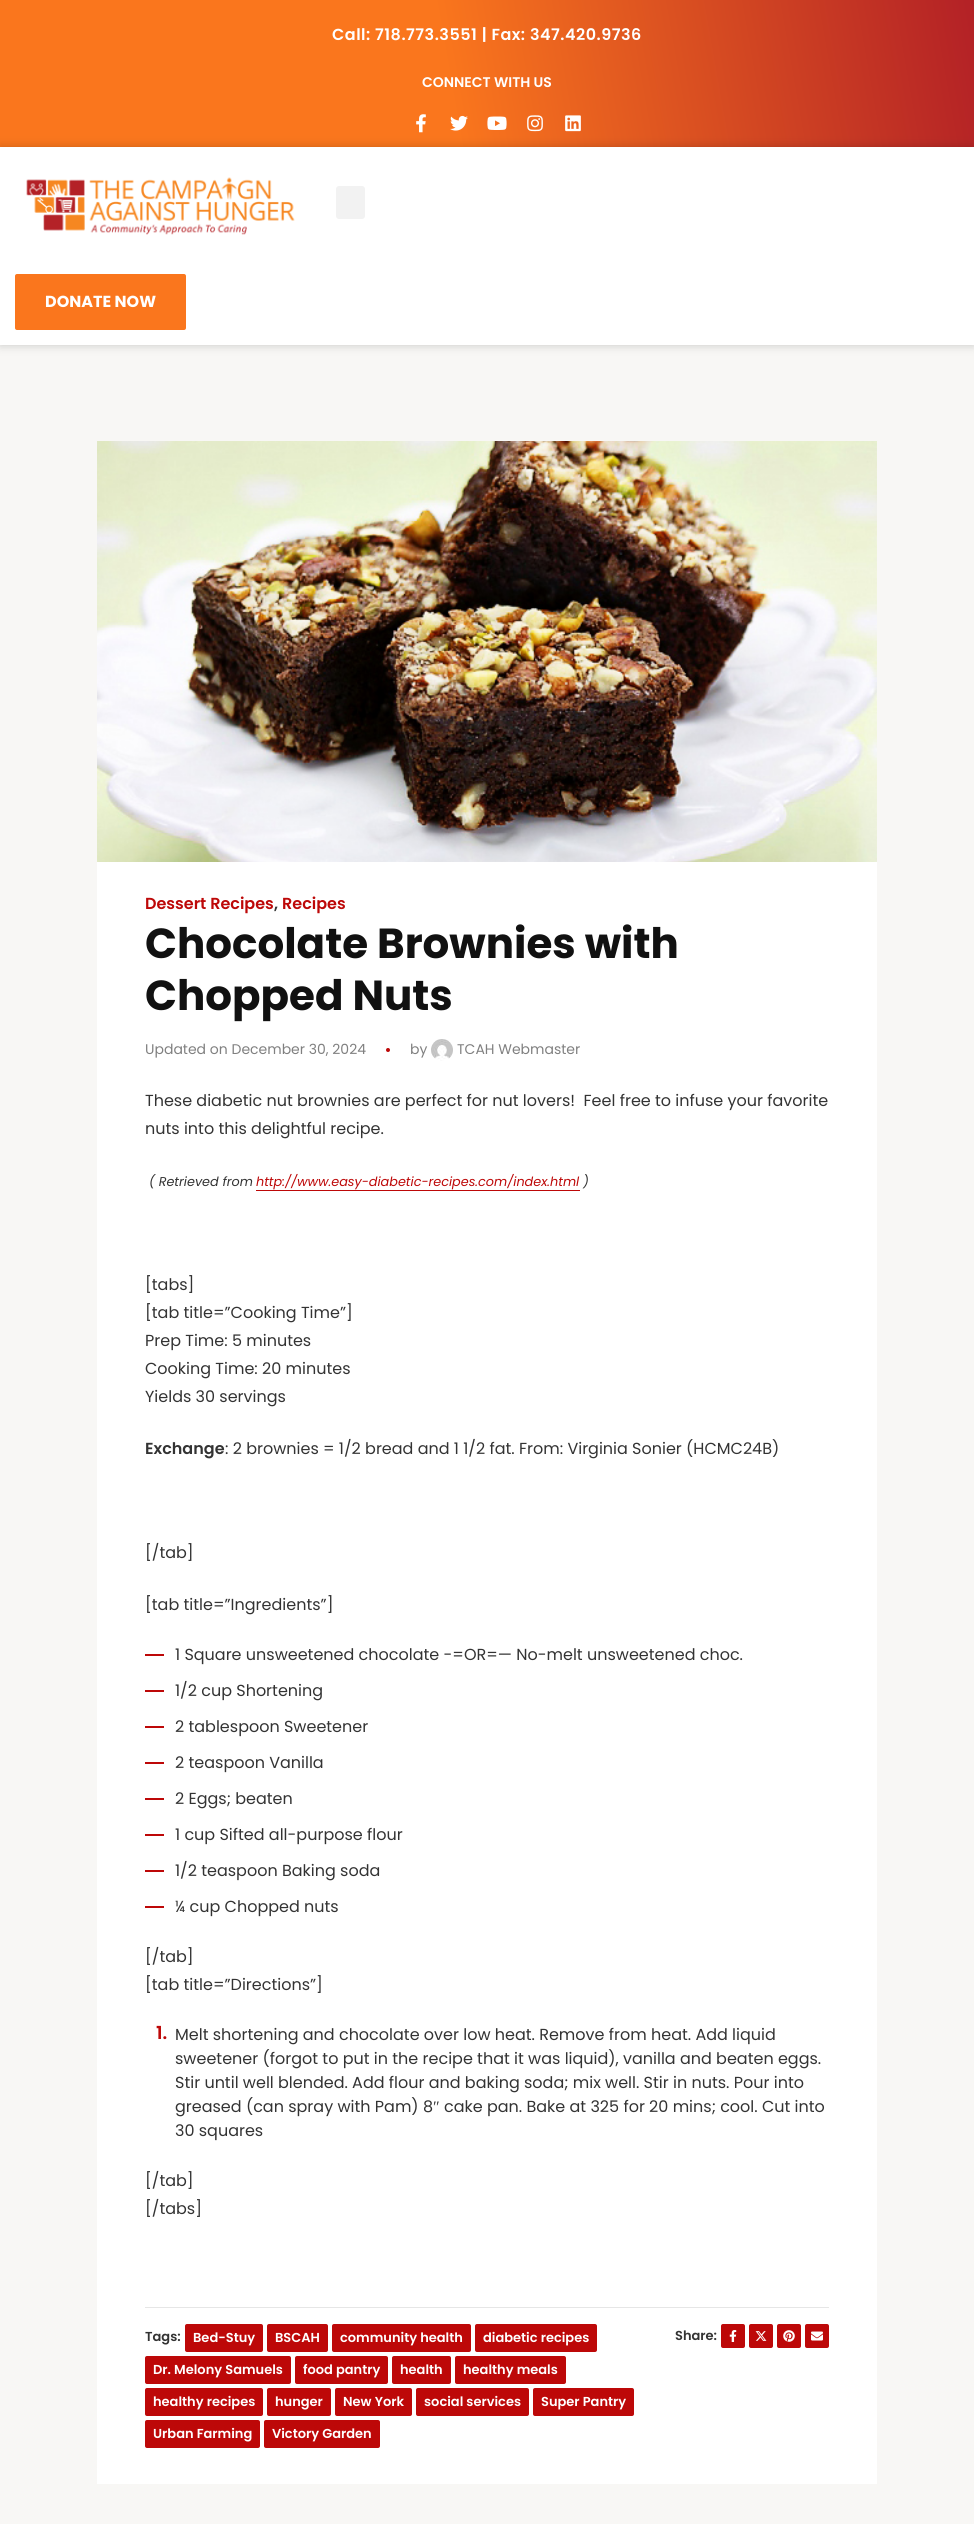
#include <cairo.h>
#include <math.h>
#include <stddef.h>


static void rgb(cairo_t *cr, int r, int g, int b)
{
	cairo_set_source_rgb(cr, r / 255.0, g / 255.0, b / 255.0);
}

static void face(cairo_t *cr, const char *family, double size, int italic, int bold)
{
	cairo_select_font_face(cr, family, italic ? CAIRO_FONT_SLANT_ITALIC : CAIRO_FONT_SLANT_NORMAL,
		bold ? CAIRO_FONT_WEIGHT_BOLD : CAIRO_FONT_WEIGHT_NORMAL);
	cairo_set_font_size(cr, size);
}

static void label(cairo_t *cr, double x, double y, const char *s)
{
	cairo_move_to(cr, x, y);
	cairo_show_text(cr, s);
}

static void tracked(cairo_t *cr, double x, double y, const char *s, double letter, double word)
{
	cairo_move_to(cr, x, y);
	while (*s) {
		char ch[5] = {0};
		int n = 0;
		do ch[n++] = *s++; while ((*s & 0xC0) == 0x80);
		cairo_show_text(cr, ch);
		cairo_rel_move_to(cr, letter + word * (*ch == ' '), 0);
	}
}

static void rect(cairo_t *cr, double x, double y, double w, double h)
{
	cairo_rectangle(cr, x, y, w, h);
	cairo_fill(cr);
}

static void rrect(cairo_t *cr, double x, double y, double w, double h, double r)
{
	cairo_new_sub_path(cr);
	cairo_arc(cr, x + w - r, y + h - r, r, 0, M_PI / 2);
	cairo_arc(cr, x + r, y + h - r, r, M_PI / 2, M_PI);
	cairo_arc(cr, x + r, y + r, r, M_PI, 1.5 * M_PI);
	cairo_arc(cr, x + w - r, y + r, r, 1.5 * M_PI, 2 * M_PI);
	cairo_close_path(cr);
}

static void soft_shadow(cairo_t *cr, double x, double y, double w, double h, double r, double blur, double alpha)
{
	cairo_push_group_with_content(cr, CAIRO_CONTENT_ALPHA);
	cairo_set_operator(cr, CAIRO_OPERATOR_SOURCE);
	for (int i = 15; i >= -15 && fmin(w, h) + blur * i / 3 > 0; i -= 2) {
		double e = blur * i / 6;
		cairo_set_source_rgba(cr, 0, 0, 0, alpha * erfc((i - 1) / 8.5) / 2);
		rrect(cr, x - e, y - e, w + 2 * e, h + 2 * e, fmax(0, fmin(r + e + blur * .6, fmin(w, h) / 2 + e)));
		cairo_fill(cr);
	}
	cairo_pattern_t *soft = cairo_pop_group(cr);
	cairo_mask(cr, soft);
	cairo_pattern_destroy(soft);
}

static void image(cairo_t *cr, const char *path, double x, double y, double w, double h)
{
	cairo_surface_t *image = cairo_image_surface_create_from_png(path);
	cairo_save(cr);
	cairo_set_source_surface(cr, image, x, y);
	cairo_rectangle(cr, x, y, w, h);
	cairo_fill(cr);
	cairo_restore(cr);
	cairo_surface_destroy(image);
}

static void draw(cairo_t *cr) {
	cairo_pattern_t *gradient;
	rgb(cr, 255, 255, 255);
	cairo_paint(cr);
	gradient = cairo_pattern_create_linear(2.1, 159, 972, -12);
	cairo_pattern_add_color_stop_rgba(gradient, 0.46, 0.98, 0.463, 0.114, 1);
	cairo_pattern_add_color_stop_rgba(gradient, 1, 0.702, 0.129, 0.149, 1);
	cairo_set_source(cr, gradient);
	cairo_pattern_destroy(gradient);
	rect(cr, 0, 0, 974, 147);
	face(cr, "Poppins SemiBold", 16, 0, 0);
	rgb(cr, 255, 255, 255);
	tracked(cr, 332, 40, "Call: 718.773.3551 | Fax: 347.420.9736", 0.5, 0);
	face(cr, "Poppins SemiBold", 14, 0, 0);
	label(cr, 422, 87, "CONNECT WITH US");
	image(cr, "image0.png", 416, 114, 10, 19);
	image(cr, "image1.png", 450, 115, 18, 16);
	image(cr, "image2.png", 487, 116, 20, 14);
	image(cr, "image3.png", 527, 115, 16, 17);
	image(cr, "image4.png", 565, 115, 16, 17);
	rgb(cr, 248, 247, 245);
	rect(cr, 0, 345, 974, 2179);
	cairo_save(cr);
	cairo_set_fill_rule(cr, CAIRO_FILL_RULE_EVEN_ODD);
	cairo_new_path(cr);
	cairo_move_to(cr, 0, 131);
	cairo_line_to(cr, 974, 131);
	cairo_line_to(cr, 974, 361);
	cairo_line_to(cr, 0, 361);
	cairo_close_path(cr);
	cairo_move_to(cr, 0, 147);
	cairo_line_to(cr, 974, 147);
	cairo_line_to(cr, 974, 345);
	cairo_line_to(cr, 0, 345);
	cairo_close_path(cr);
	cairo_clip(cr);
	rgb(cr, 0, 0, 0);
	soft_shadow(cr, 0, 147, 974, 198, 0, 5, 0.2);
	cairo_restore(cr);
	image(cr, "image5.png", 26, 177, 269, 58);
	rgb(cr, 242, 242, 242);
	rrect(cr, 336, 186, 29, 33, 3);
	cairo_fill(cr);
	rgb(cr, 250, 118, 29);
	rrect(cr, 15, 274, 171, 56, 2);
	cairo_fill(cr);
	face(cr, "Poppins", 16, 0, 1);
	rgb(cr, 255, 255, 255);
	label(cr, 45, 307, "DONATE NOW");
	rect(cr, 97, 862, 780, 1622);
	image(cr, "image6.png", 97, 441, 780, 421);
	face(cr, "Poppins SemiBold", 16, 0, 0);
	rgb(cr, 189, 8, 8);
	label(cr, 145, 909, "Dessert Recipes");
	rgb(cr, 51, 51, 51);
	label(cr, 274, 909, ",");
	rgb(cr, 189, 8, 8);
	label(cr, 282, 909, "Recipes");
	face(cr, "Poppins", 42, 0, 1);
	rgb(cr, 17, 17, 17);
	label(cr, 145, 958, "Chocolate Brownies with");
	label(cr, 145, 1010, "Chopped Nuts");
	face(cr, "Poppins", 14, 0, 0);
	rgb(cr, 128, 128, 128);
	label(cr, 145, 1054, "Updated on December 30, 2024");
	rgb(cr, 189, 8, 8);
	cairo_new_path(cr);
	cairo_arc(cr, 388, 1050, 2, 0, 2 * M_PI);
	cairo_fill(cr);
	rgb(cr, 128, 128, 128);
	label(cr, 410, 1054, "by");
	image(cr, "image7.png", 431, 1039, 22, 22);
	label(cr, 457, 1054, "TCAH Webmaster");
	face(cr, "Poppins", 16, 0, 0);
	rgb(cr, 51, 51, 51);
	label(cr, 145, 1106, "These diabetic nut brownies are perfect for nut lovers!  Feel free to infuse your favorite");
	label(cr, 145, 1134, "nuts into this delightful recipe.");
	face(cr, "Poppins", 12.8, 1, 0);
	label(cr, 149, 1186, "( Retrieved from");
	rgb(cr, 189, 8, 8);
	label(cr, 256, 1186, "http://www.easy-diabetic-recipes.com/index.html");
	rect(cr, 256, 1190, 324, 1);
	rgb(cr, 51, 51, 51);
	label(cr, 583, 1186, ")");
	face(cr, "Poppins", 16, 0, 0);
	label(cr, 145, 1290, "[tabs]");
	label(cr, 145, 1318, "[tab title=”Cooking Time”]");
	label(cr, 145, 1346, "Prep Time: 5 minutes");
	label(cr, 145, 1374, "Cooking Time: 20 minutes");
	label(cr, 145, 1402, "Yields 30 servings");
	face(cr, "Poppins SemiBold", 16, 0, 0);
	label(cr, 145, 1454, "Exchange");
	face(cr, "Poppins", 16, 0, 0);
	label(cr, 225, 1454, ": 2 brownies = 1/2 bread and 1 1/2 fat. From: Virginia Sonier (HCMC24B)");
	label(cr, 145, 1558, "[/tab]");
	label(cr, 145, 1610, "[tab title=”Ingredients”]");
	rgb(cr, 189, 8, 8);
	rect(cr, 145, 1654, 19, 2);
	rgb(cr, 51, 51, 51);
	label(cr, 175, 1660, "1 Square unsweetened chocolate -=OR=— No-melt unsweetened choc.");
	rgb(cr, 189, 8, 8);
	rect(cr, 145, 1690, 19, 2);
	rgb(cr, 51, 51, 51);
	label(cr, 175, 1696, "1/2 cup Shortening");
	rgb(cr, 189, 8, 8);
	rect(cr, 145, 1726, 19, 2);
	rgb(cr, 51, 51, 51);
	label(cr, 175, 1732, "2 tablespoon Sweetener");
	rgb(cr, 189, 8, 8);
	rect(cr, 145, 1762, 19, 2);
	rgb(cr, 51, 51, 51);
	label(cr, 175, 1768, "2 teaspoon Vanilla");
	rgb(cr, 189, 8, 8);
	rect(cr, 145, 1798, 19, 2);
	rgb(cr, 51, 51, 51);
	label(cr, 175, 1804, "2 Eggs; beaten");
	rgb(cr, 189, 8, 8);
	rect(cr, 145, 1834, 19, 2);
	rgb(cr, 51, 51, 51);
	label(cr, 175, 1840, "1 cup Sifted all-purpose flour");
	rgb(cr, 189, 8, 8);
	rect(cr, 145, 1870, 19, 2);
	rgb(cr, 51, 51, 51);
	label(cr, 175, 1876, "1/2 teaspoon Baking soda");
	rgb(cr, 189, 8, 8);
	rect(cr, 145, 1906, 19, 2);
	rgb(cr, 51, 51, 51);
	label(cr, 175, 1912, "¼ cup Chopped nuts");
	label(cr, 145, 1962, "[/tab]");
	label(cr, 145, 1990, "[tab title=”Directions”]");
	face(cr, "Poppins SemiBold", 18, 0, 0);
	rgb(cr, 189, 8, 8);
	label(cr, 156, 2039, "1.");
	face(cr, "Poppins", 16, 0, 0);
	rgb(cr, 51, 51, 51);
	label(cr, 175, 2040, "Melt shortening and chocolate over low heat. Remove from heat. Add liquid");
	label(cr, 175, 2064, "sweetener (forgot to put in the recipe that it was liquid), vanilla and beaten eggs.");
	label(cr, 175, 2088, "Stir until well blended. Add flour and baking soda; mix well. Stir in nuts. Pour into");
	label(cr, 175, 2112, "greased (can spray with Pam) 8");
	face(cr, "Liberation Serif", 16, 0, 0);
	label(cr, 433, 2112, "″");
	face(cr, "Poppins", 16, 0, 0);
	label(cr, 444, 2112, "cake pan. Bake at 325 for 20 mins; cool. Cut into");
	label(cr, 175, 2136, "30 squares");
	label(cr, 145, 2186, "[/tab]");
	label(cr, 145, 2214, "[/tabs]");
	rgb(cr, 230, 230, 230);
	rect(cr, 145, 2307, 684, 1);
	face(cr, "Poppins SemiBold", 13, 0, 0);
	rgb(cr, 51, 51, 51);
	label(cr, 145, 2341, "Tags:");
	rgb(cr, 189, 8, 8);
	rrect(cr, 185, 2324, 78, 28, 2);
	cairo_fill(cr);
	rgb(cr, 255, 255, 255);
	label(cr, 193, 2342, "Bed-Stuy");
	rgb(cr, 189, 8, 8);
	rrect(cr, 267, 2324, 61, 28, 2);
	cairo_fill(cr);
	rgb(cr, 255, 255, 255);
	label(cr, 275, 2342, "BSCAH");
	rgb(cr, 189, 8, 8);
	rrect(cr, 332, 2324, 139, 28, 2);
	cairo_fill(cr);
	rgb(cr, 255, 255, 255);
	label(cr, 340, 2342, "community health");
	rgb(cr, 189, 8, 8);
	rrect(cr, 475, 2324, 122, 28, 2);
	cairo_fill(cr);
	rgb(cr, 255, 255, 255);
	label(cr, 483, 2342, "diabetic recipes");
	rgb(cr, 189, 8, 8);
	rrect(cr, 145, 2356, 146, 28, 2);
	cairo_fill(cr);
	rgb(cr, 255, 255, 255);
	label(cr, 153, 2374, "Dr. Melony Samuels");
	rgb(cr, 189, 8, 8);
	rrect(cr, 295, 2356, 93, 28, 2);
	cairo_fill(cr);
	rgb(cr, 255, 255, 255);
	label(cr, 303, 2374, "food pantry");
	rgb(cr, 189, 8, 8);
	rrect(cr, 392, 2356, 59, 28, 2);
	cairo_fill(cr);
	rgb(cr, 255, 255, 255);
	label(cr, 400, 2374, "health");
	rgb(cr, 189, 8, 8);
	rrect(cr, 455, 2356, 111, 28, 2);
	cairo_fill(cr);
	rgb(cr, 255, 255, 255);
	label(cr, 463, 2374, "healthy meals");
	rgb(cr, 189, 8, 8);
	rrect(cr, 145, 2388, 118, 28, 2);
	cairo_fill(cr);
	rgb(cr, 255, 255, 255);
	label(cr, 153, 2406, "healthy recipes");
	rgb(cr, 189, 8, 8);
	rrect(cr, 267, 2388, 64, 28, 2);
	cairo_fill(cr);
	rgb(cr, 255, 255, 255);
	label(cr, 275, 2406, "hunger");
	rgb(cr, 189, 8, 8);
	rrect(cr, 335, 2388, 77, 28, 2);
	cairo_fill(cr);
	rgb(cr, 255, 255, 255);
	label(cr, 343, 2406, "New York");
	rgb(cr, 189, 8, 8);
	rrect(cr, 416, 2388, 113, 28, 2);
	cairo_fill(cr);
	rgb(cr, 255, 255, 255);
	label(cr, 424, 2406, "social services");
	rgb(cr, 189, 8, 8);
	rrect(cr, 533, 2388, 101, 28, 2);
	cairo_fill(cr);
	rgb(cr, 255, 255, 255);
	label(cr, 541, 2406, "Super Pantry");
	rgb(cr, 189, 8, 8);
	rrect(cr, 145, 2420, 115, 28, 2);
	cairo_fill(cr);
	rgb(cr, 255, 255, 255);
	label(cr, 153, 2438, "Urban Farming");
	rgb(cr, 189, 8, 8);
	rrect(cr, 264, 2420, 116, 28, 2);
	cairo_fill(cr);
	rgb(cr, 255, 255, 255);
	label(cr, 272, 2438, "Victory Garden");
	rgb(cr, 51, 51, 51);
	label(cr, 675, 2340, "Share:");
	rgb(cr, 189, 8, 8);
	rrect(cr, 721, 2324, 24, 24, 2);
	cairo_fill(cr);
	image(cr, "image8.png", 729, 2330, 8, 12);
	rrect(cr, 749, 2324, 24, 24, 2);
	cairo_fill(cr);
	image(cr, "image9.png", 755, 2331, 12, 10);
	rrect(cr, 777, 2324, 24, 24, 2);
	cairo_fill(cr);
	image(cr, "image10.png", 783, 2330, 12, 12);
	rrect(cr, 805, 2324, 24, 24, 2);
	cairo_fill(cr);
	image(cr, "image11.png", 811, 2331, 12, 10);
}

int main(void) {
	cairo_surface_t *surface = cairo_image_surface_create(CAIRO_FORMAT_RGB24, 974, 2524);
	cairo_t *cr = cairo_create(surface);
	cairo_font_options_t *options = cairo_font_options_create();
	cairo_font_options_set_hint_metrics(options, CAIRO_HINT_METRICS_OFF);
	cairo_font_options_set_hint_style(options, CAIRO_HINT_STYLE_NONE);
	cairo_set_font_options(cr, options);
	cairo_set_miter_limit(cr, 4);
	draw(cr);
	cairo_surface_write_to_png(surface, "render.png");
	cairo_font_options_destroy(options);
	cairo_destroy(cr);
	cairo_surface_destroy(surface);
	return 0;
}
